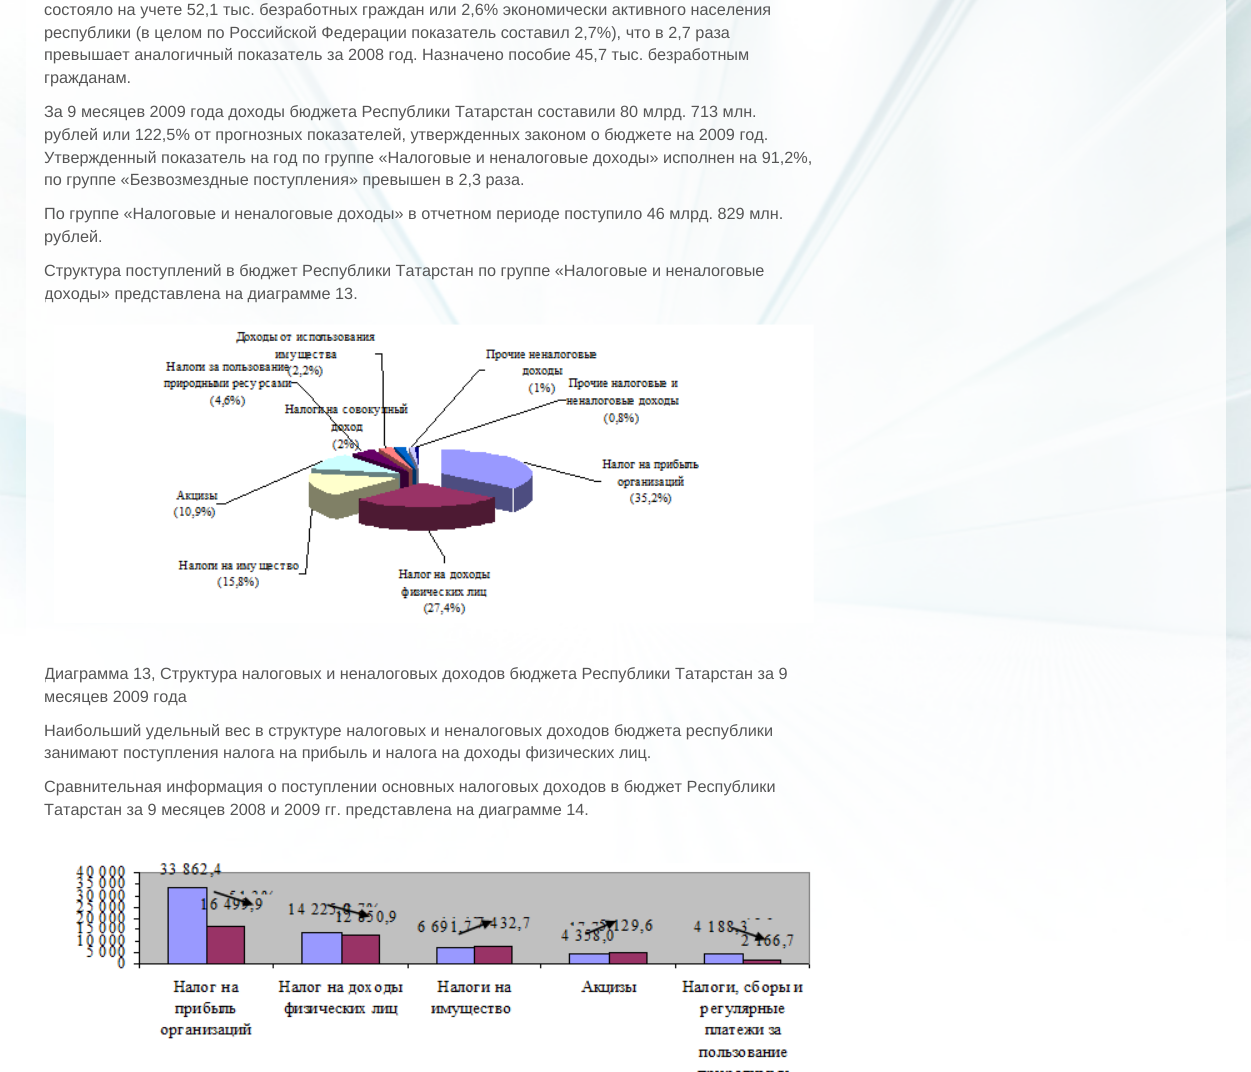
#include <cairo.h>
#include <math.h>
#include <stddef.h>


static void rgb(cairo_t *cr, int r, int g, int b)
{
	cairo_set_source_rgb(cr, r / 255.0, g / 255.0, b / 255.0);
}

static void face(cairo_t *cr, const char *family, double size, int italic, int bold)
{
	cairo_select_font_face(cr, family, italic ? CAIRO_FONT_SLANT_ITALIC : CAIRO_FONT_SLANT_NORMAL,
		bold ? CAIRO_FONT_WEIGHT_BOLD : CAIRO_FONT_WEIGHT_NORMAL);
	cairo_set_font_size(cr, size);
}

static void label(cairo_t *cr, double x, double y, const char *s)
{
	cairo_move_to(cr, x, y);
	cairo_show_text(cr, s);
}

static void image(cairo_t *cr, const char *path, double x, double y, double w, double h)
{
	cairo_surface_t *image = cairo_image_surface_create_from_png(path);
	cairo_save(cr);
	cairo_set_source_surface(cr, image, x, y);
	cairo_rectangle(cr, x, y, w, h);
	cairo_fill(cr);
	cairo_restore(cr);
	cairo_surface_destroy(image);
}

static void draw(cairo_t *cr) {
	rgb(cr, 255, 255, 255);
	cairo_paint(cr);
	image(cr, "image0.png", 0, 0, 1251, 941);
	face(cr, "Liberation Sans", 16.25, 0, 0);
	rgb(cr, 85, 85, 85);
	label(cr, 44, 15, "состояло на учете 52,1 тыс. безработных граждан или 2,6% экономически активного населения");
	label(cr, 44, 38, "республики (в целом по Российской Федерации показатель составил 2,7%), что в 2,7 раза");
	label(cr, 44, 60, "превышает аналогичный показатель за 2008 год. Назначено пособие 45,7 тыс. безработным");
	label(cr, 44, 83, "гражданам.");
	label(cr, 44, 117, "За 9 месяцев 2009 года доходы бюджета Республики Татарстан составили 80 млрд. 713 млн.");
	label(cr, 44, 140, "рублей или 122,5% от прогнозных показателей, утвержденных законом о бюджете на 2009 год.");
	label(cr, 44, 163, "Утвержденный показатель на год по группе «Налоговые и неналоговые доходы» исполнен на 91,2%,");
	label(cr, 44, 185, "по группе «Безвозмездные поступления» превышен в 2,3 раза.");
	label(cr, 44, 219, "По группе «Налоговые и неналоговые доходы» в отчетном периоде поступило 46 млрд. 829 млн.");
	label(cr, 44, 242, "рублей.");
	label(cr, 44, 276, "Структура поступлений в бюджет Республики Татарстан по группе «Налоговые и неналоговые");
	cairo_save(cr);
	cairo_rectangle(cr, 45, 0, 769, 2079);
	cairo_clip(cr);
	label(cr, 44, 299, "доходы» представлена на диаграмме 13.");
	cairo_restore(cr);
	image(cr, "image1.png", 54, 324, 760, 299);
	cairo_save(cr);
	cairo_rectangle(cr, 45, 0, 769, 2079);
	cairo_clip(cr);
	label(cr, 44, 679, "Диаграмма 13, Структура налоговых и неналоговых доходов бюджета Республики Татарстан за 9");
	cairo_restore(cr);
	label(cr, 44, 702, "месяцев 2009 года");
	label(cr, 44, 736, "Наибольший удельный вес в структуре налоговых и неналоговых доходов бюджета республики");
	label(cr, 44, 758, "занимают поступления налога на прибыль и налога на доходы физических лиц.");
	label(cr, 44, 792, "Сравнительная информация о поступлении основных налоговых доходов в бюджет Республики");
	label(cr, 44, 815, "Татарстан за 9 месяцев 2008 и 2009 гг. представлена на диаграмме 14.");
	image(cr, "image2.png", 76, 863, 735, 209);
}

int main(void) {
	cairo_surface_t *surface = cairo_image_surface_create(CAIRO_FORMAT_RGB24, 1251, 1072);
	cairo_t *cr = cairo_create(surface);
	cairo_font_options_t *options = cairo_font_options_create();
	cairo_font_options_set_hint_metrics(options, CAIRO_HINT_METRICS_OFF);
	cairo_font_options_set_hint_style(options, CAIRO_HINT_STYLE_NONE);
	cairo_set_font_options(cr, options);
	cairo_set_miter_limit(cr, 4);
	draw(cr);
	cairo_surface_write_to_png(surface, "render.png");
	cairo_font_options_destroy(options);
	cairo_destroy(cr);
	cairo_surface_destroy(surface);
	return 0;
}
